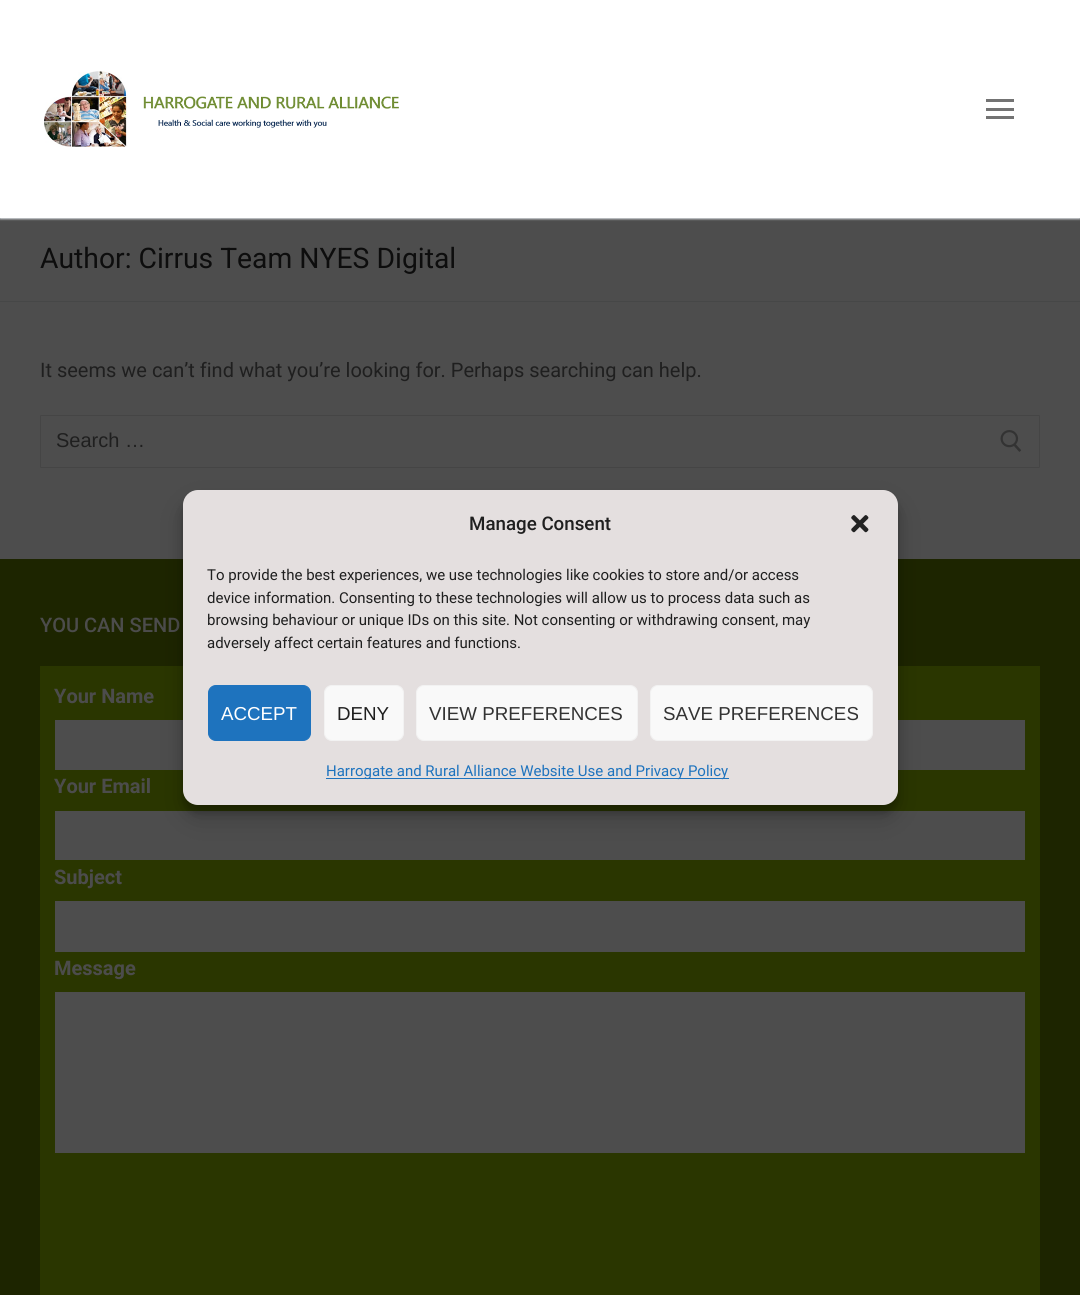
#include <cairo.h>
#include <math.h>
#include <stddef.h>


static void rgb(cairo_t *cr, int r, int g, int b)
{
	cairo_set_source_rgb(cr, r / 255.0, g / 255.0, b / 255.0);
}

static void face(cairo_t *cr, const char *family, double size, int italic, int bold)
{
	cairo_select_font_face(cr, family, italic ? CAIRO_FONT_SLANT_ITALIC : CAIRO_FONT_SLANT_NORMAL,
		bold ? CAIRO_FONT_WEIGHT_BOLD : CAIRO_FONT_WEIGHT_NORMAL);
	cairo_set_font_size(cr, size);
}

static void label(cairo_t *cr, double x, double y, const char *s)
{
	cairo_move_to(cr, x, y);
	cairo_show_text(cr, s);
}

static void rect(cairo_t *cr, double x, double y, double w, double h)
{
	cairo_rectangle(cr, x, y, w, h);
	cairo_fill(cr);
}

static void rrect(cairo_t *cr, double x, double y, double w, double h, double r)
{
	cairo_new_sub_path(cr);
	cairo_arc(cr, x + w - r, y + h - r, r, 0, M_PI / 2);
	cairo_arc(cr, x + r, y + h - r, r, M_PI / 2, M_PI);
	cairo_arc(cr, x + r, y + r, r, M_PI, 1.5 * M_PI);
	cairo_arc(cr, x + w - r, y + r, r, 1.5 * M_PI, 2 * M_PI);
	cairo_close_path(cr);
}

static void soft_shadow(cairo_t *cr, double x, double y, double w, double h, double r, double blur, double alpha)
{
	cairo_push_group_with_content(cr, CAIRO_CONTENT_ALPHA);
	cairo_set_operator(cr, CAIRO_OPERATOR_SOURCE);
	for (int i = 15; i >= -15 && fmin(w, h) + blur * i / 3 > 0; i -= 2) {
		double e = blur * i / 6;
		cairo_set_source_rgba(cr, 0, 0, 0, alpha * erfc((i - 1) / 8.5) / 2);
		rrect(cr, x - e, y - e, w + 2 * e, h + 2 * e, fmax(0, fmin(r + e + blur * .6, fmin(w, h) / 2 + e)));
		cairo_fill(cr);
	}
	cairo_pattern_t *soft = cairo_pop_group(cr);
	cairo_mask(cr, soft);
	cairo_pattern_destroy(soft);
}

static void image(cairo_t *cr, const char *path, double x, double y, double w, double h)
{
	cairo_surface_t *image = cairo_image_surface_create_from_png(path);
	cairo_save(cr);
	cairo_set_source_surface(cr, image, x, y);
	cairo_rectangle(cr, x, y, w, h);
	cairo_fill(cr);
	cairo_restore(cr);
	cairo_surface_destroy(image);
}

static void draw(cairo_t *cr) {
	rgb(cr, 77, 77, 77);
	cairo_paint(cr);
	rgb(cr, 225, 229, 234);
	soft_shadow(cr, 0, 1, 1080, 218, 0, 1, 1);
	rgb(cr, 255, 255, 255);
	rect(cr, 0, 0, 1080, 218);
	image(cr, "image0.png", 44, 71, 355, 76);
	rgb(cr, 115, 115, 115);
	rect(cr, 986, 108, 28, 3);
	rect(cr, 986, 99, 28, 3);
	rect(cr, 986, 116, 28, 3);
	rgb(cr, 70, 71, 71);
	rect(cr, 0, 301, 1080, 1);
	face(cr, "Roboto", 28.3, 0, 0);
	rgb(cr, 13, 13, 13);
	label(cr, 40, 268, "Author: Cirrus Team NYES Digital");
	face(cr, "Roboto", 20, 0, 0);
	rgb(cr, 31, 31, 31);
	label(cr, 40, 377, "It seems we can’t find what you’re looking for. Perhaps searching can help.");
	rrect(cr, 40.5, 415.5, 999, 52, 0.5);
	rgb(cr, 69, 69, 69);
	cairo_set_line_width(cr, 1);
	cairo_stroke(cr);
	face(cr, "Liberation Sans", 20, 0, 0);
	rgb(cr, 31, 31, 31);
	label(cr, 56, 447, "Search …");
	image(cr, "image1.png", 1000, 430, 22, 22);
	rgb(cr, 29, 37, 0);
	rect(cr, 0, 559, 1080, 736);
	face(cr, "Roboto Medium", 20, 0, 0);
	rgb(cr, 76, 76, 76);
	label(cr, 40, 632, "YOU CAN SEND");
	rgb(cr, 42, 54, 0);
	rect(cr, 40, 666, 1000, 629);
	face(cr, "Roboto", 20, 0, 1);
	rgb(cr, 76, 76, 76);
	label(cr, 54, 703, "Your Name");
	rgb(cr, 77, 77, 77);
	rect(cr, 55, 720, 970, 50);
	rgb(cr, 76, 76, 76);
	label(cr, 54, 793, "Your Email");
	rgb(cr, 77, 77, 77);
	rect(cr, 55, 811, 970, 49);
	rgb(cr, 76, 76, 76);
	label(cr, 54, 884, "Subject");
	rgb(cr, 77, 77, 77);
	rect(cr, 55, 901, 970, 51);
	rgb(cr, 76, 76, 76);
	label(cr, 54, 975, "Message");
	rgb(cr, 77, 77, 77);
	rect(cr, 55, 992, 970, 161);
	rgb(cr, 0, 0, 0);
	soft_shadow(cr, 183, 498, 715, 315, 15, 4, 0.23);
	soft_shadow(cr, 183, 503, 715, 315, 15, 12.5, 0.19);
	rgb(cr, 228, 223, 223);
	rrect(cr, 183, 490, 715, 315, 15);
	cairo_fill(cr);
	face(cr, "Roboto Medium", 18.75, 0, 0);
	rgb(cr, 31, 31, 31);
	label(cr, 469, 530, "Manage Consent");
	image(cr, "image2.png", 851, 515, 18, 18);
	face(cr, "Roboto", 15, 0, 0);
	label(cr, 207, 580, "To provide the best experiences, we use technologies like cookies to store and/or access");
	label(cr, 207, 603, "device information. Consenting to these technologies will allow us to process data such as");
	label(cr, 207, 625, "browsing behaviour or unique IDs on this site. Not consenting or withdrawing consent, may");
	label(cr, 207, 648, "adversely affect certain features and functions.");
	rgb(cr, 30, 115, 190);
	rrect(cr, 208.5, 685.5, 102, 55, 7.5);
	cairo_fill_preserve(cr);
	cairo_stroke(cr);
	face(cr, "Liberation Sans", 18.75, 0, 0);
	rgb(cr, 255, 255, 255);
	label(cr, 221, 720, "ACCEPT");
	rgb(cr, 249, 249, 249);
	rrect(cr, 324.5, 685.5, 79, 55, 7.5);
	cairo_fill_preserve(cr);
	rgb(cr, 242, 242, 242);
	cairo_stroke(cr);
	rgb(cr, 31, 31, 31);
	label(cr, 337, 720, "DENY");
	rgb(cr, 249, 249, 249);
	rrect(cr, 416.5, 685.5, 221, 55, 7.5);
	cairo_fill_preserve(cr);
	rgb(cr, 242, 242, 242);
	cairo_stroke(cr);
	rgb(cr, 51, 51, 51);
	label(cr, 429, 720, "VIEW PREFERENCES");
	rgb(cr, 249, 249, 249);
	rrect(cr, 650.5, 685.5, 222, 55, 7.5);
	cairo_fill_preserve(cr);
	rgb(cr, 242, 242, 242);
	cairo_stroke(cr);
	rgb(cr, 51, 51, 51);
	label(cr, 663, 720, "SAVE PREFERENCES");
	rgb(cr, 30, 115, 190);
	rect(cr, 326, 778, 403, 1);
	face(cr, "Roboto", 15, 0, 0);
	label(cr, 326, 776, "Harrogate and Rural Alliance Website Use and Privacy Policy");
}

int main(void) {
	cairo_surface_t *surface = cairo_image_surface_create(CAIRO_FORMAT_RGB24, 1080, 1295);
	cairo_t *cr = cairo_create(surface);
	cairo_font_options_t *options = cairo_font_options_create();
	cairo_font_options_set_hint_metrics(options, CAIRO_HINT_METRICS_OFF);
	cairo_font_options_set_hint_style(options, CAIRO_HINT_STYLE_NONE);
	cairo_set_font_options(cr, options);
	cairo_set_miter_limit(cr, 4);
	draw(cr);
	cairo_surface_write_to_png(surface, "render.png");
	cairo_font_options_destroy(options);
	cairo_destroy(cr);
	cairo_surface_destroy(surface);
	return 0;
}
